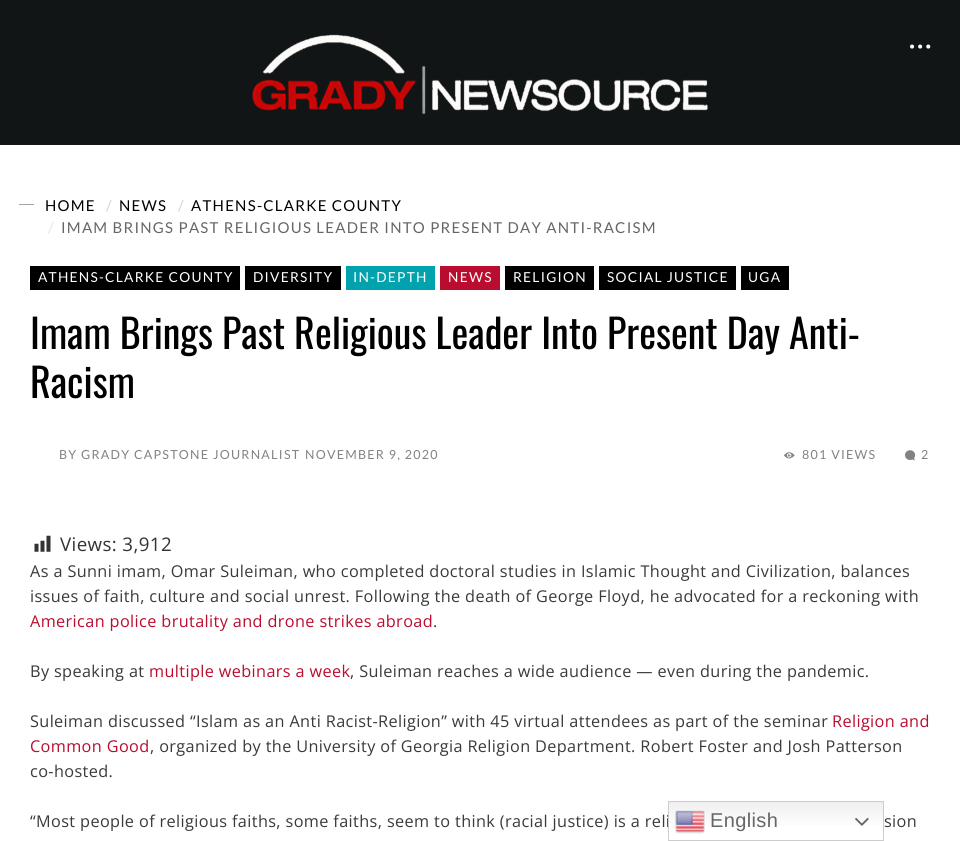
#include <cairo.h>
#include <math.h>
#include <stddef.h>


static void rgb(cairo_t *cr, int r, int g, int b)
{
	cairo_set_source_rgb(cr, r / 255.0, g / 255.0, b / 255.0);
}

static void face(cairo_t *cr, const char *family, double size, int italic, int bold)
{
	cairo_select_font_face(cr, family, italic ? CAIRO_FONT_SLANT_ITALIC : CAIRO_FONT_SLANT_NORMAL,
		bold ? CAIRO_FONT_WEIGHT_BOLD : CAIRO_FONT_WEIGHT_NORMAL);
	cairo_set_font_size(cr, size);
}

static void label(cairo_t *cr, double x, double y, const char *s)
{
	cairo_move_to(cr, x, y);
	cairo_show_text(cr, s);
}

static void tracked(cairo_t *cr, double x, double y, const char *s, double letter, double word)
{
	cairo_move_to(cr, x, y);
	while (*s) {
		char ch[5] = {0};
		int n = 0;
		do ch[n++] = *s++; while ((*s & 0xC0) == 0x80);
		cairo_show_text(cr, ch);
		cairo_rel_move_to(cr, letter + word * (*ch == ' '), 0);
	}
}

static void rect(cairo_t *cr, double x, double y, double w, double h)
{
	cairo_rectangle(cr, x, y, w, h);
	cairo_fill(cr);
}

static void image(cairo_t *cr, const char *path, double x, double y, double w, double h)
{
	cairo_surface_t *image = cairo_image_surface_create_from_png(path);
	cairo_save(cr);
	cairo_set_source_surface(cr, image, x, y);
	cairo_rectangle(cr, x, y, w, h);
	cairo_fill(cr);
	cairo_restore(cr);
	cairo_surface_destroy(image);
}

static void draw(cairo_t *cr) {
	cairo_pattern_t *gradient;
	rgb(cr, 255, 255, 255);
	cairo_paint(cr);
	rgb(cr, 18, 21, 22);
	rect(cr, 0, 0, 960, 145);
	image(cr, "image0.png", 252, 34, 456, 80);
	image(cr, "image1.png", 910, 44, 21, 5);
	rgb(cr, 164, 164, 164);
	rect(cr, 19, 204, 15, 1);
	face(cr, "Lato", 15, 0, 0);
	rgb(cr, 0, 0, 0);
	tracked(cr, 45, 211, "HOME", 1.25, 0);
	rgb(cr, 210, 210, 210);
	tracked(cr, 106, 211, "/", 1.25, 0);
	rgb(cr, 0, 0, 0);
	tracked(cr, 119, 211, "NEWS", 1.25, 0);
	rgb(cr, 210, 210, 210);
	tracked(cr, 178, 211, "/", 1.25, 0);
	rgb(cr, 0, 0, 0);
	tracked(cr, 191, 211, "ATHENS-CLARKE COUNTY", 1.25, 0);
	rgb(cr, 228, 228, 228);
	tracked(cr, 48, 233, "/", 1.25, 0);
	rgb(cr, 102, 102, 102);
	tracked(cr, 61, 233, "IMAM BRINGS PAST RELIGIOUS LEADER INTO PRESENT DAY ANTI-RACISM", 1.25, 0);
	rgb(cr, 0, 0, 0);
	rect(cr, 30, 266, 210, 24);
	face(cr, "Lato", 13.75, 0, 0);
	rgb(cr, 255, 255, 255);
	tracked(cr, 38, 282, "ATHENS-CLARKE COUNTY", 1.25, 0);
	rgb(cr, 0, 0, 0);
	rect(cr, 245, 266, 96, 24);
	rgb(cr, 255, 255, 255);
	tracked(cr, 253, 282, "DIVERSITY", 1.25, 0);
	rgb(cr, 0, 163, 173);
	rect(cr, 346, 266, 89, 24);
	rgb(cr, 255, 255, 255);
	tracked(cr, 353, 282, "IN-DEPTH", 1.25, 0);
	rgb(cr, 186, 12, 47);
	rect(cr, 440, 266, 60, 24);
	rgb(cr, 255, 255, 255);
	tracked(cr, 448, 282, "NEWS", 1.25, 0);
	rgb(cr, 0, 0, 0);
	rect(cr, 505, 266, 89, 24);
	rgb(cr, 255, 255, 255);
	tracked(cr, 513, 282, "RELIGION", 1.25, 0);
	rgb(cr, 0, 0, 0);
	rect(cr, 599, 266, 137, 24);
	rgb(cr, 255, 255, 255);
	tracked(cr, 607, 282, "SOCIAL JUSTICE", 1.25, 0);
	rgb(cr, 0, 0, 0);
	rect(cr, 741, 266, 48, 24);
	rgb(cr, 255, 255, 255);
	tracked(cr, 748, 282, "UGA", 1.25, 0);
	face(cr, "Oswald", 40, 0, 0);
	rgb(cr, 0, 0, 0);
	label(cr, 30, 349, "Imam Brings Past Religious Leader Into Present Day Anti-");
	label(cr, 30, 398, "Racism");
	face(cr, "Lato", 12.5, 0, 0);
	rgb(cr, 130, 130, 130);
	tracked(cr, 59, 459, "BY", 1.25, 0);
	tracked(cr, 81, 459, "GRADY CAPSTONE JOURNALIST", 1.25, 0);
	tracked(cr, 305, 459, "NOVEMBER 9, 2020", 1.25, 0);
	image(cr, "image2.png", 783, 452, 12, 7);
	tracked(cr, 802, 459, "801 VIEWS", 1.25, 0);
	image(cr, "image3.png", 905, 450, 11, 11);
	tracked(cr, 921, 459, "2", 1.25, 0);
	image(cr, "image4.png", 34, 535, 17, 17);
	face(cr, "Open Sans", 18.75, 0, 0);
	rgb(cr, 51, 51, 51);
	tracked(cr, 60, 551, "Views: 3,912", 0.38, 0);
	face(cr, "Open Sans", 16.25, 0, 0);
	rgb(cr, 58, 58, 58);
	tracked(cr, 30, 577, "As a Sunni imam, Omar Suleiman, who completed doctoral studies in Islamic Thought and Civilization, balances", 0.38, 0);
	tracked(cr, 30, 602, "issues of faith, culture and social unrest. Following the death of George Floyd, he advocated for a reckoning with", 0.38, 0);
	rgb(cr, 186, 12, 47);
	tracked(cr, 30, 627, "American police brutality and drone strikes abroad", 0.38, 0);
	rgb(cr, 58, 58, 58);
	tracked(cr, 433, 627, ".", 0.38, 0);
	tracked(cr, 30, 677, "By speaking at", 0.38, 0);
	rgb(cr, 186, 12, 47);
	tracked(cr, 149, 677, "multiple webinars a week", 0.38, 0);
	rgb(cr, 58, 58, 58);
	tracked(cr, 350, 677, ", Suleiman reaches a wide audience — even during the pandemic.", 0.38, 0);
	tracked(cr, 30, 727, "Suleiman discussed “Islam as an Anti Racist-Religion” with 45 virtual attendees as part of the seminar", 0.38, 0);
	rgb(cr, 186, 12, 47);
	tracked(cr, 832, 727, "Religion and", 0.38, 0);
	tracked(cr, 30, 752, "Common Good", 0.38, 0);
	rgb(cr, 58, 58, 58);
	tracked(cr, 150, 752, ", organized by the University of Georgia Religion Department. Robert Foster and Josh Patterson", 0.38, 0);
	tracked(cr, 30, 777, "co-hosted.", 0.38, 0);
	tracked(cr, 30, 827, "“Most people of religious faiths, some faiths, seem to think (racial justice) is a reli", 0.38, 0);
	tracked(cr, 884, 827, "sion", 0.38, 0);
	gradient = cairo_pattern_create_linear(776, 801, 776, 841);
	cairo_pattern_add_color_stop_rgba(gradient, 0, 0.937, 0.937, 0.937, 1);
	cairo_pattern_add_color_stop_rgba(gradient, 0.7, 1, 1, 1, 1);
	cairo_set_source(cr, gradient);
	cairo_pattern_destroy(gradient);
	rect(cr, 669, 802, 214, 23);
	cairo_rectangle(cr, 668.5, 801.5, 215, 39);
	rgb(cr, 204, 204, 204);
	cairo_set_line_width(cr, 1);
	cairo_stroke(cr);
	image(cr, "image5.png", 675, 810, 30, 24);
	face(cr, "Liberation Sans", 20, 0, 0);
	rgb(cr, 102, 102, 102);
	tracked(cr, 710, 827, "English", 0.38, 0);
	image(cr, "image6.png", 855, 817, 14, 9);
}

int main(void) {
	cairo_surface_t *surface = cairo_image_surface_create(CAIRO_FORMAT_RGB24, 960, 841);
	cairo_t *cr = cairo_create(surface);
	cairo_font_options_t *options = cairo_font_options_create();
	cairo_font_options_set_hint_metrics(options, CAIRO_HINT_METRICS_OFF);
	cairo_font_options_set_hint_style(options, CAIRO_HINT_STYLE_NONE);
	cairo_set_font_options(cr, options);
	cairo_set_miter_limit(cr, 4);
	draw(cr);
	cairo_surface_write_to_png(surface, "render.png");
	cairo_font_options_destroy(options);
	cairo_destroy(cr);
	cairo_surface_destroy(surface);
	return 0;
}
